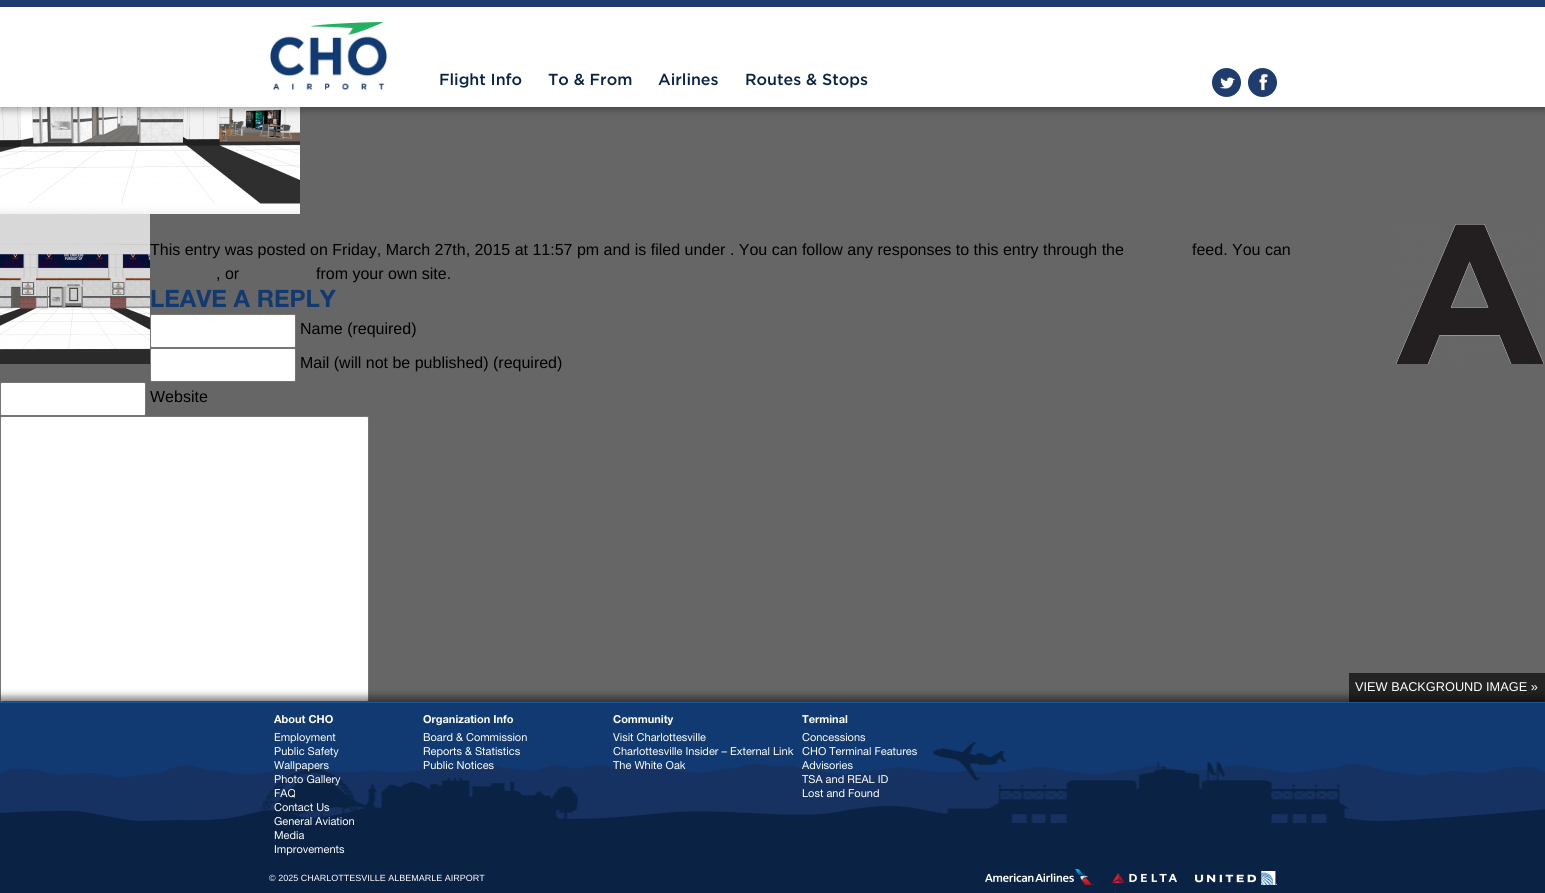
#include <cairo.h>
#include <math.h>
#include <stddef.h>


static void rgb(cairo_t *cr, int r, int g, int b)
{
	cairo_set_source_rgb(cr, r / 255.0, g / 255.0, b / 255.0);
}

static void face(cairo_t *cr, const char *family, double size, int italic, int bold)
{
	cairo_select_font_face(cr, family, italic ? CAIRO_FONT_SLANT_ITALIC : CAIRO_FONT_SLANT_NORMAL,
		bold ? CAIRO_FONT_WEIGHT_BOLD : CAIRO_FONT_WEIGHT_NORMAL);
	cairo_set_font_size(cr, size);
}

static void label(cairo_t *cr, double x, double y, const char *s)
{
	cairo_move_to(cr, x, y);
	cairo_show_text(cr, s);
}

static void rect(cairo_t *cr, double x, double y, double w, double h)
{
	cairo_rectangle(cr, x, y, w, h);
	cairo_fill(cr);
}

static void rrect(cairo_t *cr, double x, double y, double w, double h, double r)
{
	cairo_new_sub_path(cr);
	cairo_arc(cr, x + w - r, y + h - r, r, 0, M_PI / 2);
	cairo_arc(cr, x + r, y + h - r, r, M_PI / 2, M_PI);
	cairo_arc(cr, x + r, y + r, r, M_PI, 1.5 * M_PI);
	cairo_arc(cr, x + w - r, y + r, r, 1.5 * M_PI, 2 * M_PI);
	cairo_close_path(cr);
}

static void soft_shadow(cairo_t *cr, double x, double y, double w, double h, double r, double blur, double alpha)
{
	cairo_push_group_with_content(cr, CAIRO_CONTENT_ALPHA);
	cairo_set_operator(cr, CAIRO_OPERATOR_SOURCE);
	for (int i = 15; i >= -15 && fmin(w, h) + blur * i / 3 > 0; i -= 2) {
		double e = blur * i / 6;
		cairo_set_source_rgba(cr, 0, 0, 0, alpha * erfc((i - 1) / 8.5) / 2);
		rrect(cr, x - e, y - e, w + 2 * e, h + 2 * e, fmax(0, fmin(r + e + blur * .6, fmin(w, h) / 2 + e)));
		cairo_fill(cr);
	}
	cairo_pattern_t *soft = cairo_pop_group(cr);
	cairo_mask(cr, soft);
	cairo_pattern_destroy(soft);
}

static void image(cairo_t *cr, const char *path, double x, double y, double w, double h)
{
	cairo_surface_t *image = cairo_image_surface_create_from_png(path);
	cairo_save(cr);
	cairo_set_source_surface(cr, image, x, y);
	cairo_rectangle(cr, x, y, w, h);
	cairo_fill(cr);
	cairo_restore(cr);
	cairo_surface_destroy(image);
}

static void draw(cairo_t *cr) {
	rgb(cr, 102, 102, 102);
	cairo_paint(cr);
	image(cr, "image3.png", 0, 107, 300, 107);
	rgb(cr, 0, 0, 0);
	soft_shadow(cr, 0, 3, 1545, 107, 0, 4, 0.33);
	rgb(cr, 255, 255, 255);
	rect(cr, 0, 7, 1545, 100);
	rgb(cr, 31, 60, 110);
	rect(cr, 0, 0, 1545, 7);
	image(cr, "image0.png", 270, 22, 118, 68);
	face(cr, "gotham Medium", 16, 0, 0);
	rgb(cr, 10, 35, 68);
	label(cr, 439, 85, "Flight Info");
	label(cr, 548, 85, "To & From");
	label(cr, 658, 85, "Airlines");
	label(cr, 745, 85, "Routes & Stops");
	image(cr, "image1.png", 1212, 68, 29, 29);
	image(cr, "image2.png", 1248, 68, 29, 29);
	image(cr, "image4.png", 0, 214, 150, 150);
	image(cr, "image5.png", 1396, 224, 148, 140);
	face(cr, "Liberation Sans", 16, 0, 0);
	rgb(cr, 0, 0, 0);
	label(cr, 150, 255, "This entry was posted on Friday, March 27th, 2015 at 11:57 pm and is filed under . You can follow any responses to this entry through the");
	label(cr, 1192, 255, "feed. You can");
	label(cr, 216, 279, ", or");
	label(cr, 316, 279, "from your own site.");
	face(cr, "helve", 24, 0, 1);
	rgb(cr, 18, 57, 112);
	label(cr, 150, 307, "LEAVE A REPLY");
	rgb(cr, 255, 255, 255);
	rrect(cr, 150.5, 314.5, 145, 33, 1.5);
	cairo_fill_preserve(cr);
	rgb(cr, 118, 118, 118);
	cairo_set_line_width(cr, 1);
	cairo_stroke(cr);
	face(cr, "Liberation Sans", 16, 0, 0);
	rgb(cr, 0, 0, 0);
	label(cr, 300, 334, "Name (required)");
	rgb(cr, 255, 255, 255);
	rrect(cr, 150.5, 348.5, 145, 33, 1.5);
	cairo_fill_preserve(cr);
	rgb(cr, 118, 118, 118);
	cairo_stroke(cr);
	rgb(cr, 0, 0, 0);
	label(cr, 300, 368, "Mail (will not be published) (required)");
	rgb(cr, 255, 255, 255);
	rrect(cr, 0.5, 382.5, 145, 33, 1.5);
	cairo_fill_preserve(cr);
	rgb(cr, 118, 118, 118);
	cairo_stroke(cr);
	rgb(cr, 0, 0, 0);
	label(cr, 150, 402, "Website");
	rgb(cr, 255, 255, 255);
	rrect(cr, 0.5, 416.5, 368, 285, 1.5);
	cairo_fill_preserve(cr);
	rgb(cr, 118, 118, 118);
	cairo_stroke(cr);
	rgb(cr, 0, 0, 0);
	soft_shadow(cr, 0, 697, 1545, 191, 0, 4, 0.5);
	rgb(cr, 10, 34, 68);
	rect(cr, 0, 823, 1545, 70);
	image(cr, "image6.png", 0, 703, 1545, 120);
	rgb(cr, 33, 82, 148);
	rect(cr, 0, 702, 1545, 1);
	cairo_set_source_rgba(cr, 0, 0, 0, 0.66);
	rect(cr, 1349, 673, 196, 29);
	face(cr, "Liberation Sans", 12.75, 0, 0);
	rgb(cr, 255, 255, 255);
	label(cr, 1355, 691, "VIEW BACKGROUND IMAGE »");
	face(cr, "helve", 11, 0, 1);
	label(cr, 274, 723, "About CHO");
	face(cr, "Helvetica", 11, 0, 0);
	label(cr, 274, 741, "Employment");
	label(cr, 274, 755, "Public Safety");
	label(cr, 274, 769, "Wallpapers");
	label(cr, 274, 783, "Photo Gallery");
	label(cr, 274, 797, "FAQ");
	label(cr, 274, 811, "Contact Us");
	label(cr, 274, 825, "General Aviation");
	label(cr, 274, 839, "Media");
	label(cr, 274, 853, "Improvements");
	face(cr, "helve", 11, 0, 1);
	label(cr, 423, 723, "Organization Info");
	face(cr, "Helvetica", 11, 0, 0);
	label(cr, 423, 741, "Board & Commission");
	label(cr, 423, 755, "Reports & Statistics");
	label(cr, 423, 769, "Public Notices");
	face(cr, "helve", 11, 0, 1);
	label(cr, 613, 723, "Community");
	face(cr, "Helvetica", 11, 0, 0);
	label(cr, 613, 741, "Visit Charlottesville");
	label(cr, 613, 755, "Charlottesville Insider – External Link");
	label(cr, 613, 769, "The White Oak");
	face(cr, "helve", 11, 0, 1);
	label(cr, 802, 723, "Terminal");
	face(cr, "Helvetica", 11, 0, 0);
	label(cr, 802, 741, "Concessions");
	label(cr, 802, 755, "CHO Terminal Features");
	label(cr, 802, 769, "Advisories");
	label(cr, 802, 783, "TSA and REAL ID");
	label(cr, 802, 797, "Lost and Found");
	face(cr, "Liberation Sans", 9, 0, 0);
	label(cr, 269, 881, "© 2025 CHARLOTTESVILLE ALBEMARLE AIRPORT");
	image(cr, "image7.png", 985, 869, 109, 16);
	image(cr, "image8.png", 1112, 873, 65, 10);
	image(cr, "image9.png", 1195, 871, 82, 14);
}

int main(void) {
	cairo_surface_t *surface = cairo_image_surface_create(CAIRO_FORMAT_RGB24, 1545, 893);
	cairo_t *cr = cairo_create(surface);
	cairo_font_options_t *options = cairo_font_options_create();
	cairo_font_options_set_hint_metrics(options, CAIRO_HINT_METRICS_OFF);
	cairo_font_options_set_hint_style(options, CAIRO_HINT_STYLE_NONE);
	cairo_set_font_options(cr, options);
	cairo_set_miter_limit(cr, 4);
	draw(cr);
	cairo_surface_write_to_png(surface, "render.png");
	cairo_font_options_destroy(options);
	cairo_destroy(cr);
	cairo_surface_destroy(surface);
	return 0;
}
